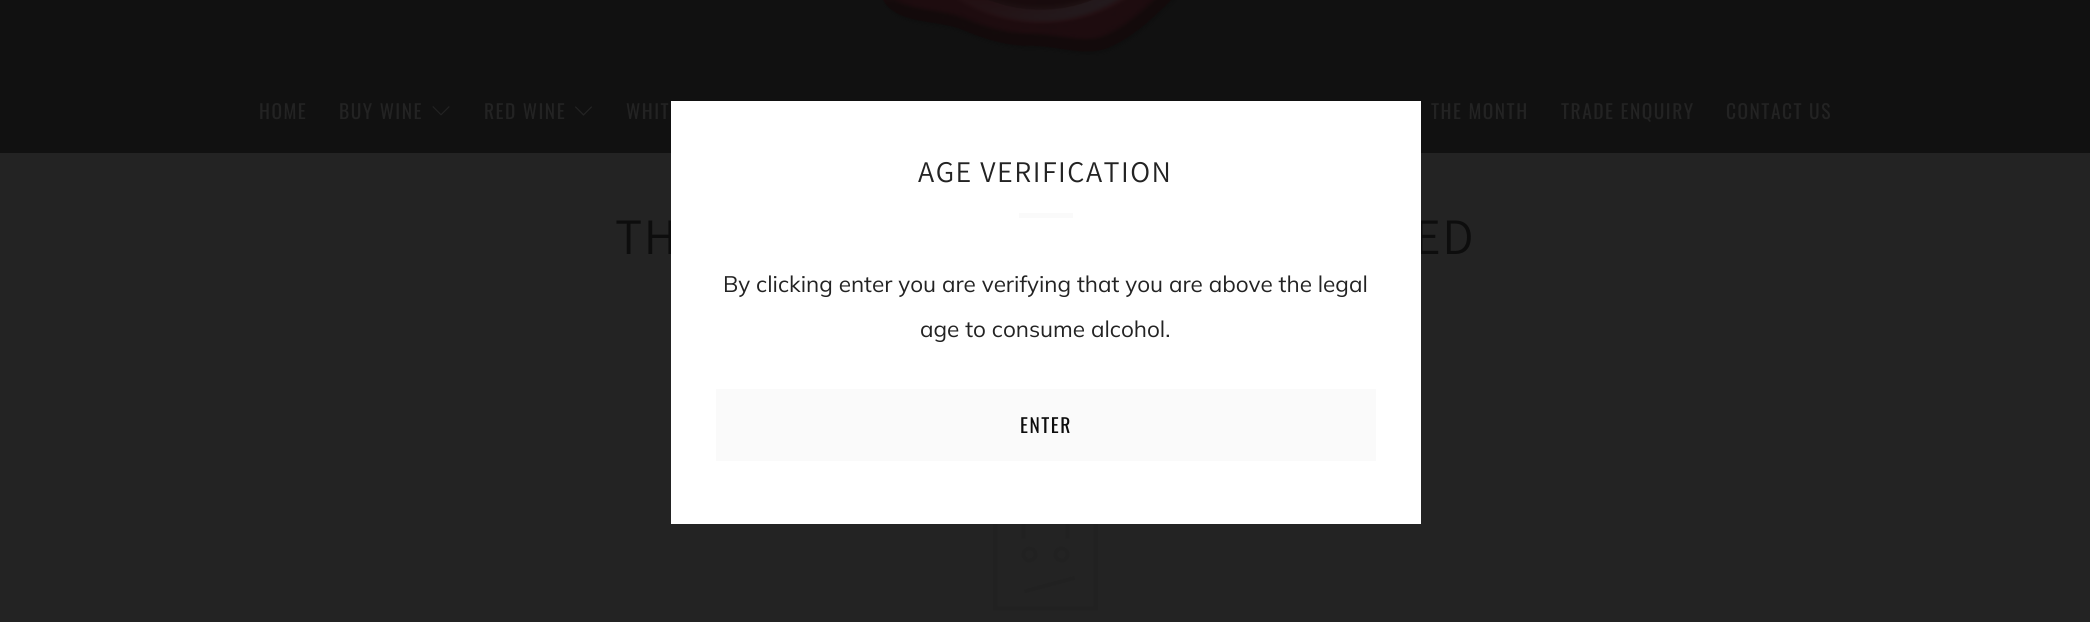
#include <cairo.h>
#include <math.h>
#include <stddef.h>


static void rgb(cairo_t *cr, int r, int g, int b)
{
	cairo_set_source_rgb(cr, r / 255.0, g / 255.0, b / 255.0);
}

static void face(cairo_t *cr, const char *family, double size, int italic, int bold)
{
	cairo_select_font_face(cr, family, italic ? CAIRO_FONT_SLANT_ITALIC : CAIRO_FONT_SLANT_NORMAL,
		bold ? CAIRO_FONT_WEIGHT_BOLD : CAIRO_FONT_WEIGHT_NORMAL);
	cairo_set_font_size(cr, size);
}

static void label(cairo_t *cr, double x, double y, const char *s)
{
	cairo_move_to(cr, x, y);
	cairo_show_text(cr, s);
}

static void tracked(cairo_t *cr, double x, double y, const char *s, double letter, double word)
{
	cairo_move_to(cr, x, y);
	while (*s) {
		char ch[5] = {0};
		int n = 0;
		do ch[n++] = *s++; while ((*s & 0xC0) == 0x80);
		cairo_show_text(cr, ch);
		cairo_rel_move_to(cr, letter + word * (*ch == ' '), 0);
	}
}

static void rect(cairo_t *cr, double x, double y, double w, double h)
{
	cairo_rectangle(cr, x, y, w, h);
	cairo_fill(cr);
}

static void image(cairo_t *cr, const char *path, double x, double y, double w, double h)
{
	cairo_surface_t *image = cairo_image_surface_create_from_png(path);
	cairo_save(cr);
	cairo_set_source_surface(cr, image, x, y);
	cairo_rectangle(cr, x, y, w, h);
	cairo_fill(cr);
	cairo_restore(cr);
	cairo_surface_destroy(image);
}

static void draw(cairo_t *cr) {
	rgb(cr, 35, 35, 35);
	cairo_paint(cr);
	rgb(cr, 17, 17, 17);
	rect(cr, 0, 0, 2090, 153);
	image(cr, "image0.png", 882, 0, 295, 56);
	face(cr, "Oswald", 19.5, 0, 0);
	rgb(cr, 35, 35, 35);
	tracked(cr, 259, 119, "HOME", 1.5, 0);
	tracked(cr, 339, 119, "BUY WINE", 1.5, 0);
	cairo_new_path(cr);
	cairo_move_to(cr, 433, 106);
	cairo_line_to(cr, 432.5, 107);
	cairo_line_to(cr, 441, 115.5);
	cairo_line_to(cr, 449.5, 107);
	cairo_line_to(cr, 449, 106);
	cairo_line_to(cr, 441, 114);
	cairo_close_path(cr);
	cairo_fill(cr);
	tracked(cr, 484, 119, "RED WINE", 1.5, 0);
	image(cr, "image1.png", 575, 106, 17, 10);
	tracked(cr, 626, 119, "WHIT", 1.5, 0);
	tracked(cr, 1431, 119, "THE MONTH", 1.5, 0);
	tracked(cr, 1561, 119, "TRADE ENQUIRY", 1.5, 0);
	tracked(cr, 1726, 119, "CONTACT US", 1.5, 0);
	face(cr, "Assistant", 51, 0, 0);
	rgb(cr, 13, 13, 13);
	tracked(cr, 615, 254, "TH", 1.5, 0);
	tracked(cr, 1414, 254, "ED", 1.5, 0);
	image(cr, "image2.png", 993, 524, 105, 87);
	rgb(cr, 255, 255, 255);
	rect(cr, 671, 101, 750, 423);
	face(cr, "Assistant", 30, 0, 0);
	rgb(cr, 35, 35, 35);
	tracked(cr, 918, 182, "AGE VERIFICATION", 1.5, 0);
	rgb(cr, 250, 250, 250);
	rect(cr, 1019, 213, 54, 5);
	face(cr, "Muli", 22.5, 0, 0);
	rgb(cr, 35, 35, 35);
	label(cr, 723, 292, "By clicking enter you are verifying that you are above the legal");
	label(cr, 920, 337, "age to consume alcohol.");
	rgb(cr, 250, 250, 250);
	rect(cr, 716, 389, 660, 72);
	face(cr, "Oswald", 19.5, 0, 0);
	rgb(cr, 13, 13, 13);
	tracked(cr, 1020, 433, "ENTER", 1.5, 0);
}

int main(void) {
	cairo_surface_t *surface = cairo_image_surface_create(CAIRO_FORMAT_RGB24, 2090, 622);
	cairo_t *cr = cairo_create(surface);
	cairo_font_options_t *options = cairo_font_options_create();
	cairo_font_options_set_hint_metrics(options, CAIRO_HINT_METRICS_OFF);
	cairo_font_options_set_hint_style(options, CAIRO_HINT_STYLE_NONE);
	cairo_set_font_options(cr, options);
	cairo_set_miter_limit(cr, 4);
	draw(cr);
	cairo_surface_write_to_png(surface, "render.png");
	cairo_font_options_destroy(options);
	cairo_destroy(cr);
	cairo_surface_destroy(surface);
	return 0;
}
